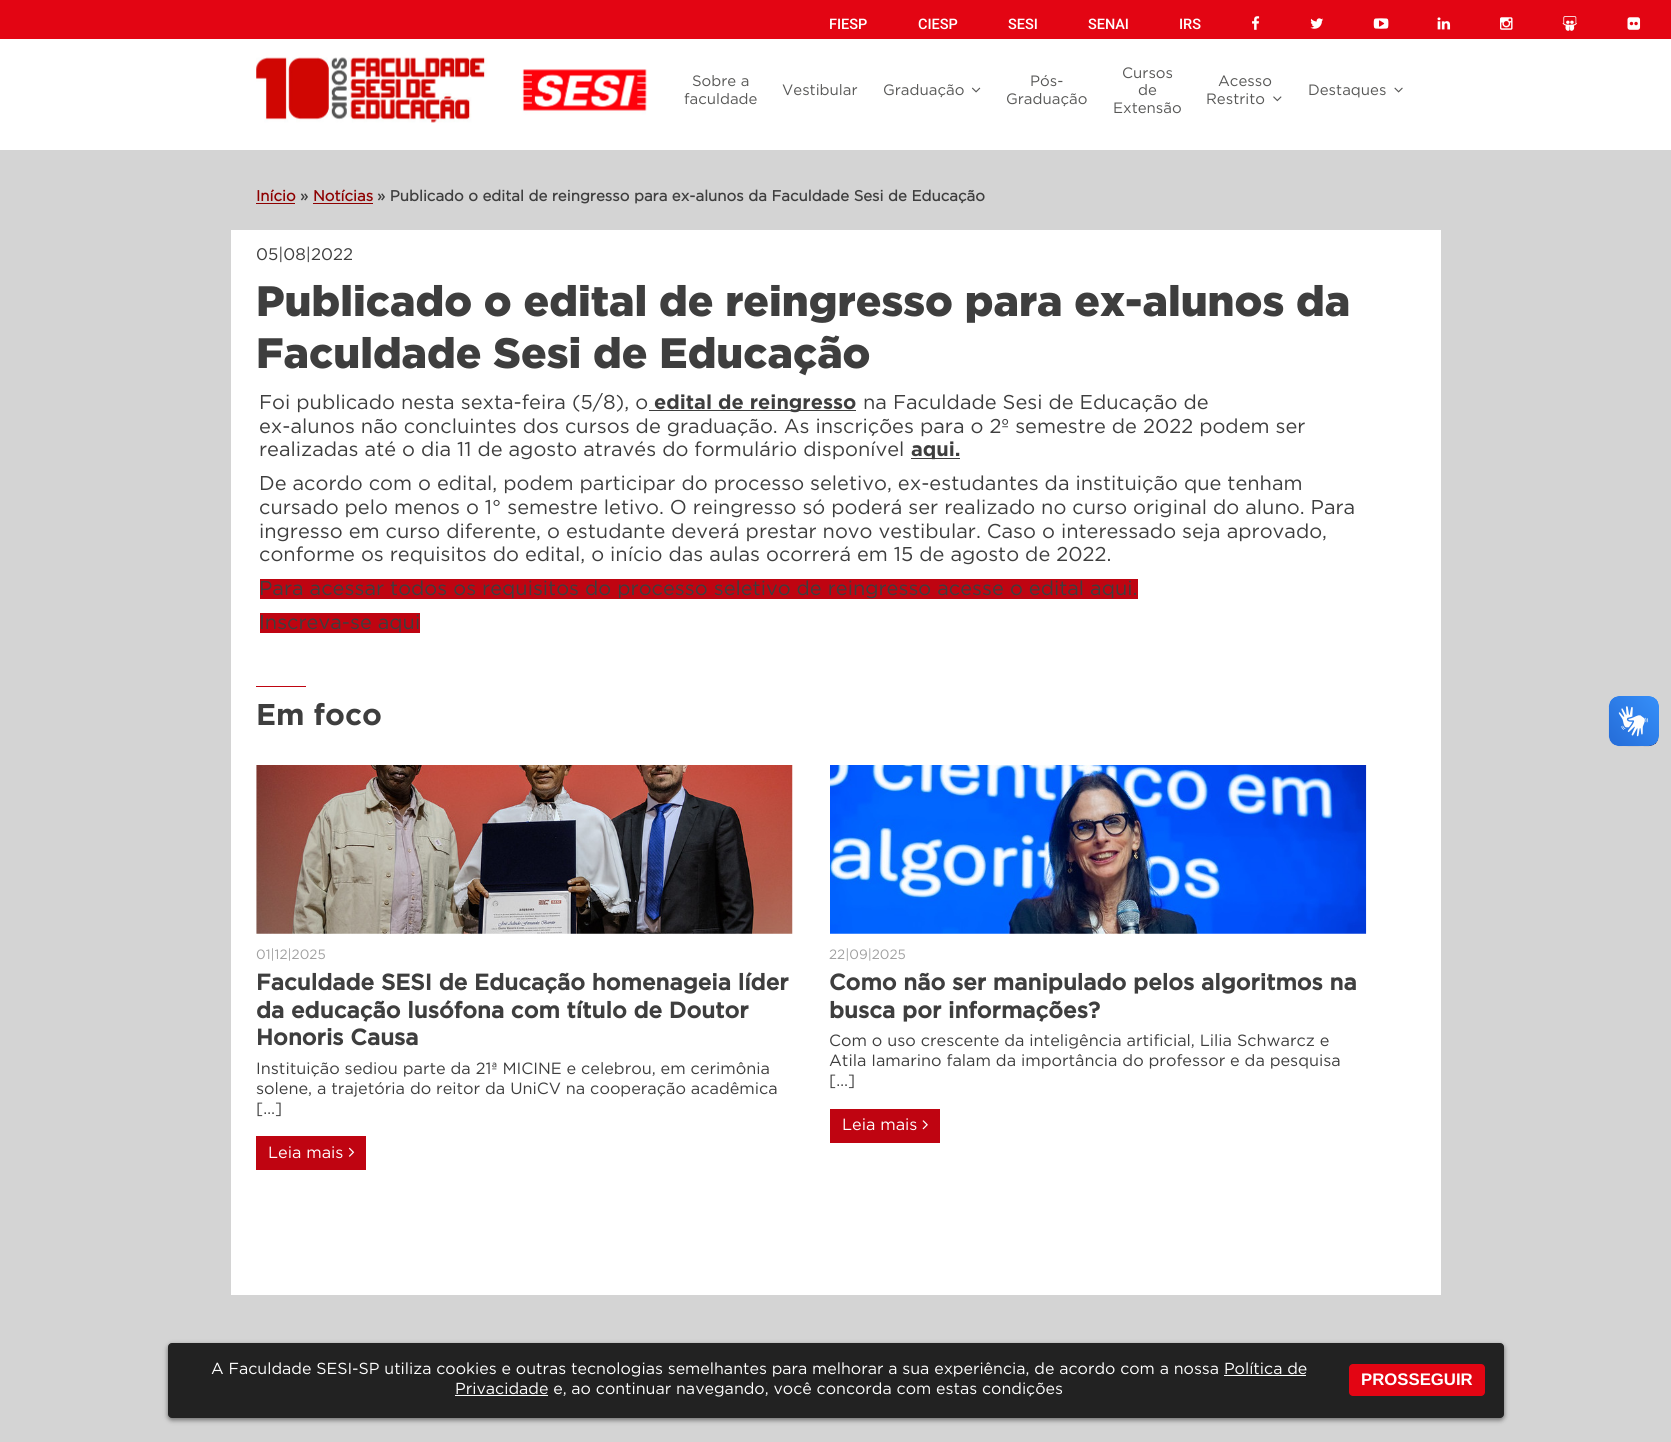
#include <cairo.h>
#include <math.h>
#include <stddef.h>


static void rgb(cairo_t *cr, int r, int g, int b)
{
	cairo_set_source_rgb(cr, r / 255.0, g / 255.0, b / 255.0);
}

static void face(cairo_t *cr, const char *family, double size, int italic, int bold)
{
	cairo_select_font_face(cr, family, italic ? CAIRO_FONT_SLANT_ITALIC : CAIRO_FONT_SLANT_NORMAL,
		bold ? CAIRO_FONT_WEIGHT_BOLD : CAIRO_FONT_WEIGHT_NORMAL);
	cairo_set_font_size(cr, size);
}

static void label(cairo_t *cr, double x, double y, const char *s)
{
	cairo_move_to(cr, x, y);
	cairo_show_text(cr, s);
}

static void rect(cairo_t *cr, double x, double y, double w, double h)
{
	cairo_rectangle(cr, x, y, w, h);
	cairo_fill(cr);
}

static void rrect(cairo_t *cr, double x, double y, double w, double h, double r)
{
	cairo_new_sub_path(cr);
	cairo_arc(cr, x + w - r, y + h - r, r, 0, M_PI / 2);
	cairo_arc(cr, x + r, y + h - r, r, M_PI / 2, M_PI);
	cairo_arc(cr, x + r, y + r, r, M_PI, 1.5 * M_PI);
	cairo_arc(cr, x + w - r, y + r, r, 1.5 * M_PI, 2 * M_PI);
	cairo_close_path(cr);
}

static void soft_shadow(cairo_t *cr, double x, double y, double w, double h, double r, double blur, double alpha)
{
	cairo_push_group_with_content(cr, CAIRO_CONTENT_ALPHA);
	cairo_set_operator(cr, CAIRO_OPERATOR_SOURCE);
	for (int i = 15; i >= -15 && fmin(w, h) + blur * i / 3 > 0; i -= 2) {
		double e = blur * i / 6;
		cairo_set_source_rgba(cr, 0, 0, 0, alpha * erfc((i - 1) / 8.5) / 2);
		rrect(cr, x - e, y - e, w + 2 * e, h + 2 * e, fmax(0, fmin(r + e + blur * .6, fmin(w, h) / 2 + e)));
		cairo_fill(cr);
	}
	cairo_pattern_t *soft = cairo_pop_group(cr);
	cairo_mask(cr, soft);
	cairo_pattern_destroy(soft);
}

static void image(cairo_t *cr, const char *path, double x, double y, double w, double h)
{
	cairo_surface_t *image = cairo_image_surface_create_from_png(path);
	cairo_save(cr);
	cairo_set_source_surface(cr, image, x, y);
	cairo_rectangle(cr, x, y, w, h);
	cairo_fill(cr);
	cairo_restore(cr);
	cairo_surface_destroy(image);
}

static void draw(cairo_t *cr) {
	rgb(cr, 255, 255, 255);
	cairo_paint(cr);
	rgb(cr, 227, 5, 19);
	rect(cr, 0, 0, 1671, 39);
	face(cr, "Roboto Medium", 14.5, 0, 0);
	rgb(cr, 255, 255, 255);
	label(cr, 829, 29, "FIESP");
	label(cr, 918, 29, "CIESP");
	label(cr, 1008, 29, "SESI");
	label(cr, 1088, 29, "SENAI");
	label(cr, 1179, 29, "IRS");
	image(cr, "image0.png", 1252, 16, 8, 14);
	image(cr, "image1.png", 1310, 18, 14, 11);
	image(cr, "image2.png", 1373, 18, 16, 11);
	image(cr, "image3.png", 1437, 17, 14, 13);
	image(cr, "image4.png", 1500, 17, 13, 13);
	image(cr, "image5.png", 1562, 16, 15, 15);
	image(cr, "image6.png", 1627, 17, 14, 13);
	image(cr, "image7.png", 256, 57, 391, 66);
	face(cr, "Gotham", 15, 0, 0);
	rgb(cr, 87, 87, 86);
	label(cr, 692, 86, "Sobre a");
	label(cr, 684, 104, "faculdade");
	label(cr, 782, 95, "Vestibular");
	label(cr, 883, 95, "Graduação");
	image(cr, "image8.png", 971, 87, 10, 6);
	label(cr, 1030, 86, "Pós-");
	label(cr, 1006, 104, "Graduação");
	label(cr, 1122, 78, "Cursos");
	label(cr, 1138, 95, "de");
	label(cr, 1113, 113, "Extensão");
	label(cr, 1218, 86, "Acesso");
	label(cr, 1206, 104, "Restrito");
	image(cr, "image9.png", 1273, 96, 9, 6);
	label(cr, 1308, 95, "Destaques");
	image(cr, "image10.png", 1394, 87, 9, 6);
	rgb(cr, 212, 212, 212);
	rect(cr, 0, 150, 1671, 1292);
	face(cr, "Gotham", 15, 0, 1);
	rgb(cr, 142, 0, 0);
	label(cr, 256, 201, "Início");
	rect(cr, 256, 203, 39, 1);
	rgb(cr, 62, 62, 62);
	label(cr, 300, 201, "»");
	rgb(cr, 142, 0, 0);
	label(cr, 313, 201, "Notícias");
	rect(cr, 313, 203, 60, 1);
	rgb(cr, 62, 62, 62);
	label(cr, 377, 201, "» Publicado o edital de reingresso para ex-alunos da Faculdade Sesi de Educação");
	rgb(cr, 255, 255, 255);
	rect(cr, 231, 230, 1210, 1065);
	face(cr, "Gotham", 16.75, 0, 0);
	rgb(cr, 62, 62, 62);
	label(cr, 256, 260, "05|08|2022");
	face(cr, "Gotham Black", 42.5, 0, 0);
	label(cr, 256, 316, "Publicado o edital de reingresso para ex-alunos da");
	label(cr, 256, 368, "Faculdade Sesi de Educação");
	face(cr, "Gotham", 20, 0, 0);
	label(cr, 259, 409, "Foi publicado nesta sexta-feira (5/8), o");
	rect(cr, 649, 410, 207, 1);
	face(cr, "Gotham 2", 20, 0, 1);
	label(cr, 654, 409, "edital de reingresso");
	face(cr, "Gotham", 20, 0, 0);
	label(cr, 863, 409, "na Faculdade Sesi de Educação de");
	label(cr, 259, 433, "ex-alunos não concluintes dos cursos de graduação. As inscrições para o 2º semestre de 2022 podem ser");
	label(cr, 259, 456, "realizadas até o dia 11 de agosto através do formulário disponível");
	rect(cr, 911, 458, 49, 1);
	face(cr, "Gotham 2", 20, 0, 1);
	label(cr, 911, 456, "aqui.");
	face(cr, "Gotham", 20, 0, 0);
	label(cr, 259, 490, "De acordo com o edital, podem participar do processo seletivo, ex-estudantes da instituição que tenham");
	label(cr, 259, 514, "cursado pelo menos o 1° semestre letivo. O reingresso só poderá ser realizado no curso original do aluno. Para");
	label(cr, 259, 538, "ingresso em curso diferente, o estudante deverá prestar novo vestibular. Caso o interessado seja aprovado,");
	label(cr, 259, 561, "conforme os requisitos do edital, o início das aulas ocorrerá em 15 de agosto de 2022.");
	rgb(cr, 191, 4, 17);
	rect(cr, 260, 579, 878, 20);
	rgb(cr, 62, 62, 62);
	label(cr, 259, 595, "Para acessar todos os requisitos do processo seletivo de reingresso acesse o edital aqui.");
	rgb(cr, 191, 4, 17);
	rect(cr, 260, 613, 160, 20);
	rgb(cr, 62, 62, 62);
	label(cr, 259, 629, "Inscreva-se aqui");
	rgb(cr, 191, 4, 17);
	rect(cr, 256, 686, 50, 1);
	face(cr, "Gotham 2", 30, 0, 1);
	rgb(cr, 62, 62, 62);
	label(cr, 256, 725, "Em foco");
	image(cr, "image11.png", 256, 765, 537, 169);
	face(cr, "Gotham", 13.5, 0, 0);
	rgb(cr, 160, 160, 160);
	label(cr, 256, 959, "01|12|2025");
	face(cr, "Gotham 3", 22.5, 0, 1);
	rgb(cr, 62, 62, 62);
	label(cr, 256, 990, "Faculdade SESI de Educação homenageia líder");
	label(cr, 256, 1018, "da educação lusófona com título de Doutor");
	label(cr, 256, 1045, "Honoris Causa");
	face(cr, "Gotham", 16.25, 0, 0);
	label(cr, 256, 1074, "Instituição sediou parte da 21ª MICINE e celebrou, em cerimônia");
	label(cr, 256, 1094, "solene, a trajetória do reitor da UniCV na cooperação acadêmica");
	label(cr, 256, 1114, "[…]");
	rgb(cr, 191, 4, 17);
	rect(cr, 256, 1136, 110, 34);
	rgb(cr, 255, 255, 255);
	label(cr, 268, 1158, "Leia mais");
	image(cr, "image12.png", 348, 1147, 7, 10);
	image(cr, "image13.png", 830, 765, 537, 169);
	face(cr, "Gotham", 13.5, 0, 0);
	rgb(cr, 160, 160, 160);
	label(cr, 829, 959, "22|09|2025");
	face(cr, "Gotham 3", 22.5, 0, 1);
	rgb(cr, 62, 62, 62);
	label(cr, 829, 990, "Como não ser manipulado pelos algoritmos na");
	label(cr, 829, 1018, "busca por informações?");
	face(cr, "Gotham", 16.25, 0, 0);
	label(cr, 829, 1046, "Com o uso crescente da inteligência artificial, Lilia Schwarcz e");
	label(cr, 829, 1066, "Atila Iamarino falam da importância do professor e da pesquisa");
	label(cr, 829, 1086, "[…]");
	rgb(cr, 191, 4, 17);
	rect(cr, 830, 1109, 110, 34);
	rgb(cr, 255, 255, 255);
	label(cr, 842, 1130, "Leia mais");
	image(cr, "image14.png", 922, 1120, 6, 10);
	image(cr, "image15.png", 1608, 696, 51, 51);
	image(cr, "image16.png", 1609, 696, 50, 50);
	rgb(cr, 0, 0, 0);
	soft_shadow(cr, 168, 1345, 1336, 75, 4, 2.5, 0.5);
	rgb(cr, 34, 34, 34);
	rrect(cr, 168.5, 1343.5, 1335, 74, 3.5);
	cairo_fill_preserve(cr);
	cairo_set_line_width(cr, 1);
	cairo_stroke(cr);
	face(cr, "Gotham", 16, 0, 0);
	rgb(cr, 255, 255, 255);
	label(cr, 211, 1374, "A Faculdade SESI-SP utiliza cookies e outras tecnologias semelhantes para melhorar a sua experiência, de acordo com a nossa Política de");
	rect(cr, 455, 1395, 93, 1);
	label(cr, 455, 1394, "Privacidade e, ao continuar navegando, você concorda com estas condições");
	rect(cr, 1224, 1375, 82, 1);
	rgb(cr, 227, 5, 19);
	rrect(cr, 1349, 1364, 136, 32, 4);
	cairo_fill(cr);
	face(cr, "Liberation Sans", 16.75, 0, 1);
	rgb(cr, 255, 255, 255);
	label(cr, 1361, 1385, "PROSSEGUIR");
}

int main(void) {
	cairo_surface_t *surface = cairo_image_surface_create(CAIRO_FORMAT_RGB24, 1671, 1442);
	cairo_t *cr = cairo_create(surface);
	cairo_font_options_t *options = cairo_font_options_create();
	cairo_font_options_set_hint_metrics(options, CAIRO_HINT_METRICS_OFF);
	cairo_font_options_set_hint_style(options, CAIRO_HINT_STYLE_NONE);
	cairo_set_font_options(cr, options);
	cairo_set_miter_limit(cr, 4);
	draw(cr);
	cairo_surface_write_to_png(surface, "render.png");
	cairo_font_options_destroy(options);
	cairo_destroy(cr);
	cairo_surface_destroy(surface);
	return 0;
}
